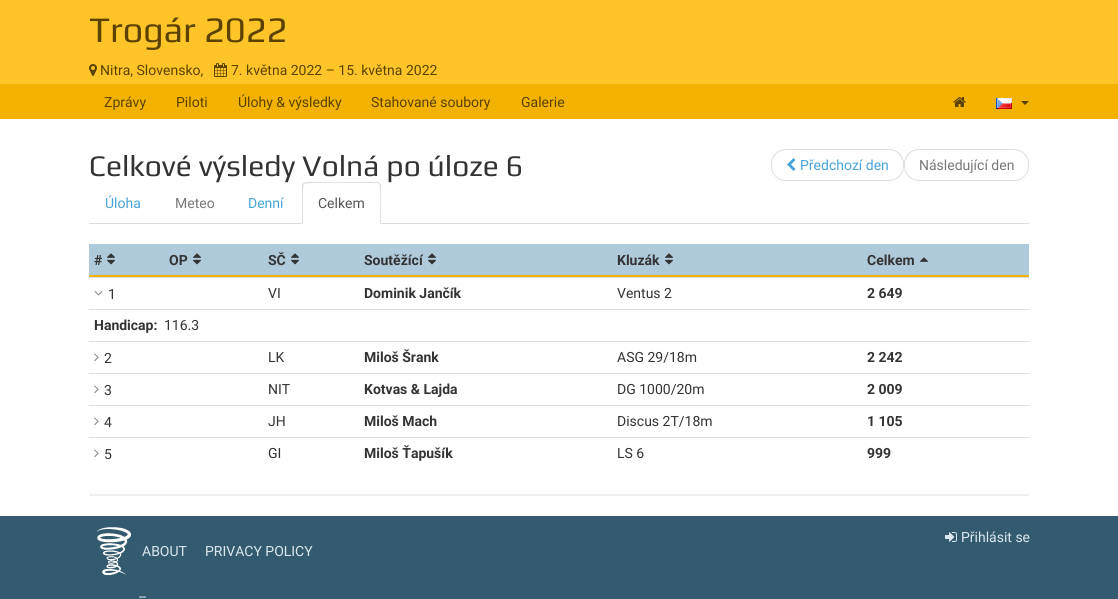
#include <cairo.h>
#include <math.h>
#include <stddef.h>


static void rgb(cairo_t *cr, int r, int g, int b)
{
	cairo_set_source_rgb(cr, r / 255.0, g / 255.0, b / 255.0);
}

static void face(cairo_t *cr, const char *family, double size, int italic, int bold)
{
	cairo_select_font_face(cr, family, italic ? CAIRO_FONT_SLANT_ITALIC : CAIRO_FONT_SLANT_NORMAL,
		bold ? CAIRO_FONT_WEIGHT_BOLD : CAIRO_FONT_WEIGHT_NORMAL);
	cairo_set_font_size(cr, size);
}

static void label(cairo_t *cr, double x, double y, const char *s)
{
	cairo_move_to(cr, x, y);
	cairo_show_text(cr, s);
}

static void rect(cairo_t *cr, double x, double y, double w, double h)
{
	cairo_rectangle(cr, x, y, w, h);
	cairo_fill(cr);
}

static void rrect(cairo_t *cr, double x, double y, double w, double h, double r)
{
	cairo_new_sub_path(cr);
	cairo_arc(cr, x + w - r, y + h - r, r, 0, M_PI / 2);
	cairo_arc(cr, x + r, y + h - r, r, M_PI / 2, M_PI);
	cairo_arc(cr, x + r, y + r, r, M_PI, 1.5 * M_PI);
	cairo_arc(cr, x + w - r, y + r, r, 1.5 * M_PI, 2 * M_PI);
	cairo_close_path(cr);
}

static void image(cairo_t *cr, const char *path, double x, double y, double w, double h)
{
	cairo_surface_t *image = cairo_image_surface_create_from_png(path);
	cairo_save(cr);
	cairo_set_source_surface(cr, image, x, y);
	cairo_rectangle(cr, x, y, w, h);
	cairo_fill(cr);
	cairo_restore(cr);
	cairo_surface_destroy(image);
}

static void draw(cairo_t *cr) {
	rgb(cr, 255, 255, 255);
	cairo_paint(cr);
	rgb(cr, 255, 197, 40);
	rect(cr, 0, 0, 1118, 84);
	face(cr, "Play", 36, 0, 0);
	rgb(cr, 91, 66, 0);
	label(cr, 89, 42, "Trogár 2022");
	image(cr, "image0.png", 89, 64, 8, 12);
	face(cr, "Roboto", 14, 0, 0);
	label(cr, 100, 75, "Nitra, Slovensko,");
	image(cr, "image1.png", 214, 63, 13, 14);
	label(cr, 231, 75, "7. května 2022 – 15. května 2022");
	rgb(cr, 244, 178, 0);
	rect(cr, 0, 84, 1118, 35);
	rgb(cr, 91, 66, 0);
	label(cr, 104, 107, "Zprávy");
	label(cr, 176, 107, "Piloti");
	label(cr, 238, 107, "Úlohy & výsledky");
	label(cr, 371, 107, "Stahované soubory");
	label(cr, 521, 107, "Galerie");
	image(cr, "image2.png", 953, 97, 13, 10);
	image(cr, "image3.png", 996, 98, 16, 11);
	cairo_new_path(cr);
	cairo_move_to(cr, 1021, 101);
	cairo_line_to(cr, 1029, 101);
	cairo_line_to(cr, 1025, 105);
	cairo_close_path(cr);
	cairo_fill(cr);
	face(cr, "Play", 30, 0, 0);
	rgb(cr, 51, 51, 51);
	label(cr, 89, 176, "Celkové výsledy Volná po úloze 6");
	rrect(cr, 771.5, 149.5, 132, 31, 14.5);
	rgb(cr, 221, 221, 221);
	cairo_set_line_width(cr, 1);
	cairo_stroke(cr);
	image(cr, "image4.png", 787, 158, 9, 13);
	face(cr, "Roboto", 14, 0, 0);
	rgb(cr, 71, 164, 217);
	label(cr, 800, 170, "Předchozí den");
	rrect(cr, 904.5, 149.5, 124, 31, 14.5);
	rgb(cr, 221, 221, 221);
	cairo_stroke(cr);
	rgb(cr, 119, 119, 119);
	label(cr, 919, 170, "Následující den");
	rgb(cr, 221, 221, 221);
	rect(cr, 89, 223, 940, 1);
	rgb(cr, 71, 164, 217);
	label(cr, 105, 208, "Úloha");
	rgb(cr, 119, 119, 119);
	label(cr, 175, 208, "Meteo");
	rgb(cr, 71, 164, 217);
	label(cr, 248, 208, "Denní");
	rgb(cr, 255, 255, 255);
	cairo_new_path(cr);
	cairo_move_to(cr, 306, 182);
	cairo_line_to(cr, 377, 182);
	cairo_curve_to(cr, 379, 182, 381, 184, 381, 186);
	cairo_line_to(cr, 381, 224);
	cairo_line_to(cr, 302, 224);
	cairo_line_to(cr, 302, 186);
	cairo_curve_to(cr, 302, 184, 304, 182, 306, 182);
	cairo_close_path(cr);
	cairo_fill(cr);
	rgb(cr, 221, 221, 221);
	cairo_new_path(cr);
	cairo_move_to(cr, 306, 182);
	cairo_line_to(cr, 303, 183);
	cairo_line_to(cr, 304, 184);
	cairo_curve_to(cr, 306, 182, 358, 183, 365, 183);
	cairo_line_to(cr, 377, 183);
	cairo_line_to(cr, 379, 184);
	cairo_line_to(cr, 380, 183);
	cairo_line_to(cr, 377, 182);
	cairo_close_path(cr);
	cairo_fill(cr);
	cairo_new_path(cr);
	cairo_move_to(cr, 381, 224);
	cairo_line_to(cr, 381, 186);
	cairo_curve_to(cr, 381, 185, 380, 184, 380, 183);
	cairo_line_to(cr, 379, 184);
	cairo_curve_to(cr, 381, 186, 380, 218, 380, 223);
	cairo_close_path(cr);
	cairo_fill(cr);
	cairo_new_path(cr);
	cairo_move_to(cr, 302, 224);
	cairo_line_to(cr, 303, 223);
	cairo_curve_to(cr, 303, 218, 302, 186, 304, 184);
	cairo_line_to(cr, 303, 183);
	cairo_line_to(cr, 302, 186);
	cairo_close_path(cr);
	cairo_fill(cr);
	rgb(cr, 85, 85, 85);
	label(cr, 318, 208, "Celkem");
	rgb(cr, 175, 202, 218);
	rect(cr, 89, 244, 940, 31);
	rgb(cr, 244, 178, 0);
	rect(cr, 89, 275, 940, 2);
	face(cr, "Roboto", 14, 0, 1);
	rgb(cr, 51, 51, 51);
	label(cr, 94, 265, "#");
	image(cr, "image5.png", 107, 253, 8, 12);
	label(cr, 169, 265, "OP");
	image(cr, "image5.png", 193, 253, 8, 12);
	label(cr, 268, 265, "SČ");
	image(cr, "image5.png", 291, 253, 8, 12);
	label(cr, 364, 265, "Soutěžící");
	image(cr, "image5.png", 428, 253, 8, 12);
	label(cr, 617, 265, "Kluzák");
	image(cr, "image5.png", 665, 253, 8, 12);
	label(cr, 867, 265, "Celkem");
	image(cr, "image6.png", 920, 257, 8, 5);
	rgb(cr, 221, 221, 221);
	rect(cr, 89, 277, 940, 1);
	image(cr, "image7.png", 94, 291, 9, 5);
	face(cr, "Roboto", 14, 0, 0);
	rgb(cr, 51, 51, 51);
	label(cr, 108, 299, "1");
	label(cr, 268, 298, "VI");
	face(cr, "Roboto", 14, 0, 1);
	label(cr, 364, 298, "Dominik Jančík");
	face(cr, "Roboto", 14, 0, 0);
	label(cr, 617, 298, "Ventus 2");
	face(cr, "Roboto", 14, 0, 1);
	label(cr, 867, 298, "2 649");
	rgb(cr, 221, 221, 221);
	rect(cr, 89, 309, 940, 1);
	rgb(cr, 51, 51, 51);
	label(cr, 94, 330, "Handicap:");
	face(cr, "Roboto", 14, 0, 0);
	label(cr, 164, 330, "116.3");
	rgb(cr, 221, 221, 221);
	rect(cr, 89, 341, 940, 1);
	image(cr, "image8.png", 94, 353, 5, 9);
	rgb(cr, 51, 51, 51);
	label(cr, 104, 363, "2");
	label(cr, 268, 362, "LK");
	face(cr, "Roboto", 14, 0, 1);
	label(cr, 364, 362, "Miloš Šrank");
	face(cr, "Roboto", 14, 0, 0);
	label(cr, 617, 362, "ASG 29/18m");
	face(cr, "Roboto", 14, 0, 1);
	label(cr, 867, 362, "2 242");
	rgb(cr, 221, 221, 221);
	rect(cr, 89, 373, 940, 1);
	image(cr, "image8.png", 94, 385, 5, 9);
	face(cr, "Roboto", 14, 0, 0);
	rgb(cr, 51, 51, 51);
	label(cr, 104, 395, "3");
	label(cr, 268, 394, "NIT");
	face(cr, "Roboto", 14, 0, 1);
	label(cr, 364, 394, "Kotvas & Lajda");
	face(cr, "Roboto", 14, 0, 0);
	label(cr, 617, 394, "DG 1000/20m");
	face(cr, "Roboto", 14, 0, 1);
	label(cr, 867, 394, "2 009");
	rgb(cr, 221, 221, 221);
	rect(cr, 89, 405, 940, 1);
	image(cr, "image8.png", 94, 417, 5, 9);
	face(cr, "Roboto", 14, 0, 0);
	rgb(cr, 51, 51, 51);
	label(cr, 104, 427, "4");
	label(cr, 268, 426, "JH");
	face(cr, "Roboto", 14, 0, 1);
	label(cr, 364, 426, "Miloš Mach");
	face(cr, "Roboto", 14, 0, 0);
	label(cr, 617, 426, "Discus 2T/18m");
	face(cr, "Roboto", 14, 0, 1);
	label(cr, 867, 426, "1 105");
	rgb(cr, 221, 221, 221);
	rect(cr, 89, 437, 940, 1);
	image(cr, "image8.png", 94, 449, 5, 9);
	face(cr, "Roboto", 14, 0, 0);
	rgb(cr, 51, 51, 51);
	label(cr, 104, 459, "5");
	label(cr, 268, 458, "GI");
	face(cr, "Roboto", 14, 0, 1);
	label(cr, 364, 458, "Miloš Ťapušík");
	face(cr, "Roboto", 14, 0, 0);
	label(cr, 617, 458, "LS 6");
	face(cr, "Roboto", 14, 0, 1);
	label(cr, 867, 458, "999");
	rgb(cr, 238, 238, 238);
	rect(cr, 89, 494, 940, 2);
	rgb(cr, 52, 90, 111);
	rect(cr, 0, 516, 1118, 83);
	image(cr, "image9.png", 945, 532, 12, 10);
	face(cr, "Roboto", 14, 0, 0);
	rgb(cr, 220, 231, 237);
	label(cr, 961, 542, "Přihlásit se");
	image(cr, "image10.png", 97, 527, 34, 48);
	label(cr, 142, 556, "ABOUT");
	label(cr, 205, 556, "PRIVACY POLICY");
	label(cr, 138, 602, "–");
}

int main(void) {
	cairo_surface_t *surface = cairo_image_surface_create(CAIRO_FORMAT_RGB24, 1118, 599);
	cairo_t *cr = cairo_create(surface);
	cairo_font_options_t *options = cairo_font_options_create();
	cairo_font_options_set_hint_metrics(options, CAIRO_HINT_METRICS_OFF);
	cairo_font_options_set_hint_style(options, CAIRO_HINT_STYLE_NONE);
	cairo_set_font_options(cr, options);
	cairo_set_miter_limit(cr, 4);
	draw(cr);
	cairo_surface_write_to_png(surface, "render.png");
	cairo_font_options_destroy(options);
	cairo_destroy(cr);
	cairo_surface_destroy(surface);
	return 0;
}
